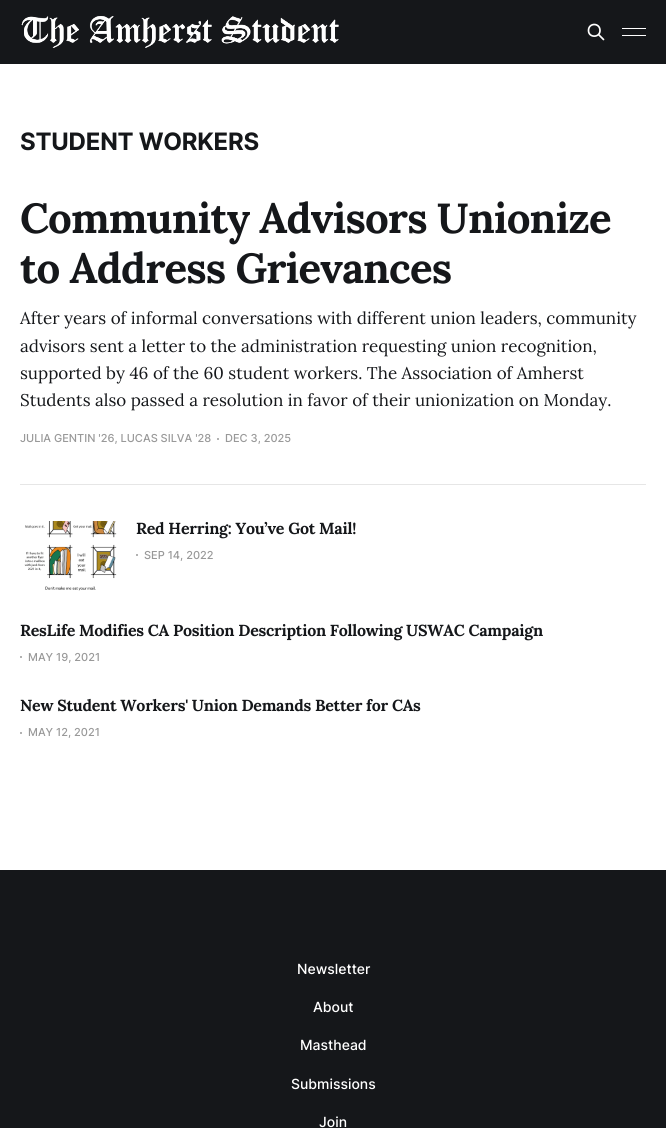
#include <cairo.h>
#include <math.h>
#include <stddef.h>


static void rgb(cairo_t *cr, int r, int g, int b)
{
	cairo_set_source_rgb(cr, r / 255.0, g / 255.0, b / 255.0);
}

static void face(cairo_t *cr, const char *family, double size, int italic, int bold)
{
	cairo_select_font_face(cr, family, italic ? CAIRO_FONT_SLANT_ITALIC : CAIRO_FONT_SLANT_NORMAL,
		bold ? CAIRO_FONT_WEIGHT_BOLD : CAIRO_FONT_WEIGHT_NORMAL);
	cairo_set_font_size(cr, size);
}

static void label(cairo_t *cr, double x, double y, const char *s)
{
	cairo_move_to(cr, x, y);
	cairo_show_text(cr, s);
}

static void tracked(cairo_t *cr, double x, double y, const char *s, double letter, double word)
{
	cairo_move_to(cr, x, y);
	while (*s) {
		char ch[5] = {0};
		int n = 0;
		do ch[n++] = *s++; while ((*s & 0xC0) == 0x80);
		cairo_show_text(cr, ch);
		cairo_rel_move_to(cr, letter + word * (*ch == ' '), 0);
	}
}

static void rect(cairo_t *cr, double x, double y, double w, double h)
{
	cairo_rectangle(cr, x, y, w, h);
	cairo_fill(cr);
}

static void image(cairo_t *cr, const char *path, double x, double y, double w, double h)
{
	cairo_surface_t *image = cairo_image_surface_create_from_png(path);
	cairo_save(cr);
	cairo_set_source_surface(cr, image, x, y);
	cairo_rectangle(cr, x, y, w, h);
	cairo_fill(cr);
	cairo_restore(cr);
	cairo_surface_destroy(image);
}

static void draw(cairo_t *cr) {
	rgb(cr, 255, 255, 255);
	cairo_paint(cr);
	rgb(cr, 21, 23, 26);
	rect(cr, 0, 0, 666, 64);
	image(cr, "image0.png", 21, 16, 318, 32);
	image(cr, "image1.png", 21, 16, 318, 32);
	cairo_new_path(cr);
	cairo_move_to(cr, 603.5, 39.5);
	cairo_line_to(cr, 598.5, 34.5);
	cairo_move_to(cr, 600, 30.5);
	cairo_curve_to(cr, 600, 38, 588.5, 38, 588.5, 30.5);
	cairo_curve_to(cr, 588.5, 22.5, 600, 22.5, 600, 30.5);
	cairo_close_path(cr);
	rgb(cr, 255, 255, 255);
	cairo_set_line_width(cr, 1.7);
	cairo_set_line_cap(cr, CAIRO_LINE_CAP_ROUND);
	cairo_set_line_join(cr, CAIRO_LINE_JOIN_ROUND);
	cairo_stroke(cr);
	rect(cr, 622, 28, 24, 1);
	rect(cr, 622, 35, 24, 1);
	face(cr, "Inter", 24, 0, 1);
	rgb(cr, 21, 23, 26);
	tracked(cr, 20, 150, "STUDENT WORKERS", -0.25, 0);
	rgb(cr, 230, 230, 230);
	rect(cr, 20, 484, 626, 1);
	face(cr, "Lora", 42, 0, 1);
	rgb(cr, 21, 23, 26);
	tracked(cr, 20, 233, "Community Advisors Unionize", -0.85, 0);
	tracked(cr, 20, 283, "to Address Grievances", -0.85, 0);
	face(cr, "Lora", 17, 0, 0);
	label(cr, 20, 324, "After years of informal conversations with different union leaders, community");
	label(cr, 20, 352, "advisors sent a letter to the administration requesting union recognition,");
	label(cr, 20, 379, "supported by 46 of the 60 student workers. The Association of Amherst");
	label(cr, 20, 406, "Students also passed a resolution in favor of their unionization on Monday.");
	face(cr, "Inter Medium", 11, 0, 0);
	rgb(cr, 153, 153, 153);
	label(cr, 20, 442, "JULIA GENTIN '26, LUCAS SILVA '28");
	cairo_new_path(cr);
	cairo_arc(cr, 218, 439, 1, 0, 2 * M_PI);
	cairo_fill(cr);
	label(cr, 225, 442, "DEC 3, 2025");
	image(cr, "image2.png", 24, 521, 93, 70);
	face(cr, "Lora", 16, 0, 1);
	rgb(cr, 21, 23, 26);
	tracked(cr, 136, 534, "Red Herring: You’ve Got Mail!", -0.25, 0);
	rgb(cr, 153, 153, 153);
	cairo_new_path(cr);
	cairo_arc(cr, 137, 555, 1, 0, 2 * M_PI);
	cairo_fill(cr);
	face(cr, "Inter Medium", 11, 0, 0);
	label(cr, 144, 559, "SEP 14, 2022");
	face(cr, "Lora", 16, 0, 1);
	rgb(cr, 21, 23, 26);
	tracked(cr, 20, 636, "ResLife Modifies CA Position Description Following USWAC Campaign", -0.25, 0);
	rgb(cr, 153, 153, 153);
	cairo_new_path(cr);
	cairo_arc(cr, 21, 657, 1, 0, 2 * M_PI);
	cairo_fill(cr);
	face(cr, "Inter Medium", 11, 0, 0);
	label(cr, 28, 661, "MAY 19, 2021");
	face(cr, "Lora", 16, 0, 1);
	rgb(cr, 21, 23, 26);
	tracked(cr, 20, 711, "New Student Workers' Union Demands Better for CAs", -0.25, 0);
	rgb(cr, 153, 153, 153);
	cairo_new_path(cr);
	cairo_arc(cr, 21, 733, 1, 0, 2 * M_PI);
	cairo_fill(cr);
	face(cr, "Inter Medium", 11, 0, 0);
	label(cr, 28, 736, "MAY 12, 2021");
	rgb(cr, 21, 23, 26);
	rect(cr, 0, 870, 666, 258);
	face(cr, "Inter Medium", 14, 0, 0);
	rgb(cr, 255, 255, 255);
	label(cr, 297, 974, "Newsletter");
	label(cr, 313, 1012, "About");
	label(cr, 300, 1050, "Masthead");
	label(cr, 291, 1089, "Submissions");
	label(cr, 319, 1127, "Join");
}

int main(void) {
	cairo_surface_t *surface = cairo_image_surface_create(CAIRO_FORMAT_RGB24, 666, 1128);
	cairo_t *cr = cairo_create(surface);
	cairo_font_options_t *options = cairo_font_options_create();
	cairo_font_options_set_hint_metrics(options, CAIRO_HINT_METRICS_OFF);
	cairo_font_options_set_hint_style(options, CAIRO_HINT_STYLE_NONE);
	cairo_set_font_options(cr, options);
	cairo_set_miter_limit(cr, 4);
	draw(cr);
	cairo_surface_write_to_png(surface, "render.png");
	cairo_font_options_destroy(options);
	cairo_destroy(cr);
	cairo_surface_destroy(surface);
	return 0;
}
